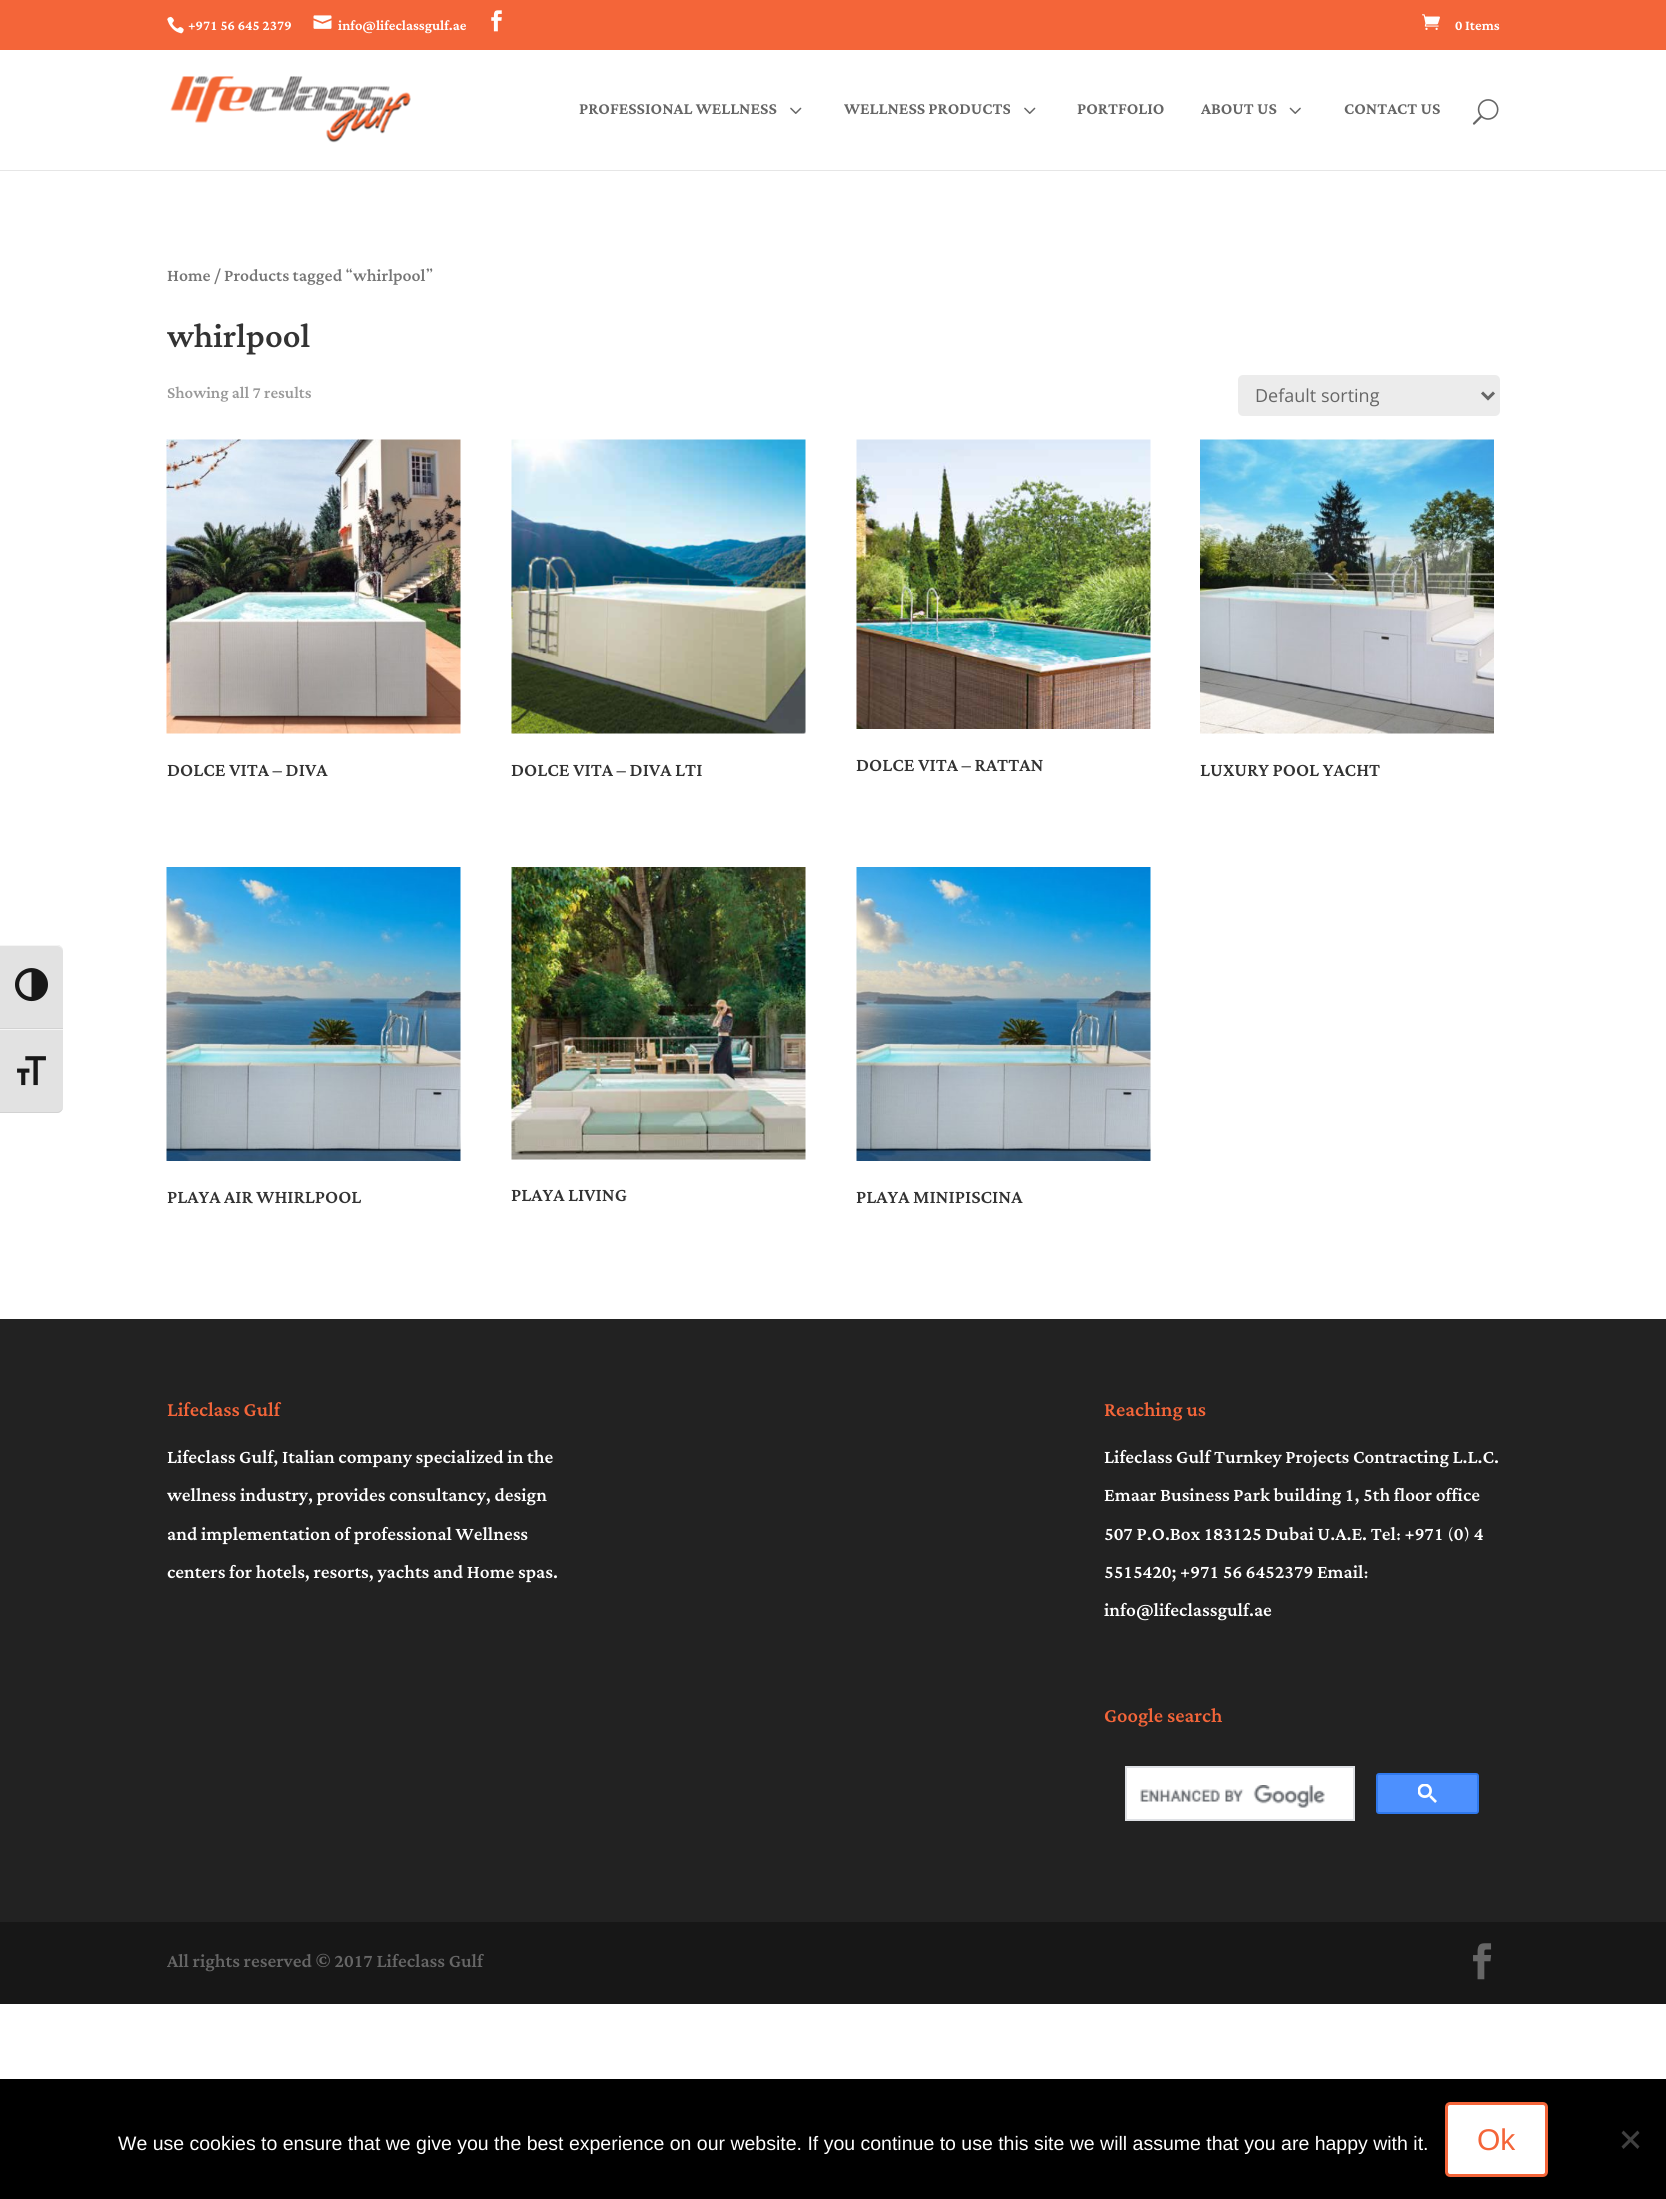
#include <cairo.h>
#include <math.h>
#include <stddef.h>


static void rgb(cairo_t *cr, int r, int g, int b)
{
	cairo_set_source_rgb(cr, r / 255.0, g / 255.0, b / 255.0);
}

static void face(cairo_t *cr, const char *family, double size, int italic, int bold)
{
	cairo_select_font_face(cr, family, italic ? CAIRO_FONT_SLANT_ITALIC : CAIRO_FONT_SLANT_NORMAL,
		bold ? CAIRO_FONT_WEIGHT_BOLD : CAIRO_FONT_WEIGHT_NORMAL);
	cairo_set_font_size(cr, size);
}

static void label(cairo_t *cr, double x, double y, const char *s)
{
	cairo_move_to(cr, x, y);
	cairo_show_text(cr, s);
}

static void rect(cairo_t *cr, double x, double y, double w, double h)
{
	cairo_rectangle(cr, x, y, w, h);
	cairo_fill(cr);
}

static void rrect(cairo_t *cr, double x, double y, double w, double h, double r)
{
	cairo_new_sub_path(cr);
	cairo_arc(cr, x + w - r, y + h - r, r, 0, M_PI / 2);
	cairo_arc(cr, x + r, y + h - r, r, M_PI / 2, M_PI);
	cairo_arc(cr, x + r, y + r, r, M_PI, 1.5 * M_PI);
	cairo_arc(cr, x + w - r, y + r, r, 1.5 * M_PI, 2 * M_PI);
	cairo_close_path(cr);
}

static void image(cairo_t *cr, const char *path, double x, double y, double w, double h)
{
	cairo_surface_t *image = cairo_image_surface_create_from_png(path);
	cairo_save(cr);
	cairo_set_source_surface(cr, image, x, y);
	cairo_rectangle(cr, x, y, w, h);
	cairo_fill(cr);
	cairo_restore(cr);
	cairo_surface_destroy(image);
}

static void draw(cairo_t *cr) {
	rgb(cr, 255, 255, 255);
	cairo_paint(cr);
	rgb(cr, 226, 226, 226);
	cairo_new_path(cr);
	cairo_move_to(cr, 0, 945);
	cairo_line_to(cr, 57, 945);
	cairo_curve_to(cr, 60.5, 945, 63, 947.5, 63, 951);
	cairo_line_to(cr, 63, 1029);
	cairo_line_to(cr, 0, 1029);
	cairo_close_path(cr);
	cairo_fill(cr);
	rgb(cr, 245, 245, 245);
	cairo_new_path(cr);
	cairo_move_to(cr, 0, 945);
	cairo_line_to(cr, 0, 946);
	cairo_line_to(cr, 57, 946);
	cairo_curve_to(cr, 60, 946, 63, 949, 63, 951);
	cairo_curve_to(cr, 63, 948, 60, 945, 57, 945);
	cairo_close_path(cr);
	cairo_fill(cr);
	rgb(cr, 210, 210, 210);
	rect(cr, 0, 1028, 63, 1);
	image(cr, "image0.png", 15, 968, 33, 34);
	rgb(cr, 226, 226, 226);
	cairo_new_path(cr);
	cairo_move_to(cr, 0, 1029);
	cairo_line_to(cr, 63, 1029);
	cairo_line_to(cr, 63, 1107);
	cairo_curve_to(cr, 63, 1110.5, 60.5, 1113, 57, 1113);
	cairo_line_to(cr, 0, 1113);
	cairo_close_path(cr);
	cairo_fill(cr);
	rgb(cr, 245, 245, 245);
	rect(cr, 0, 1029, 63, 1);
	rgb(cr, 210, 210, 210);
	cairo_new_path(cr);
	cairo_move_to(cr, 0, 1112);
	cairo_line_to(cr, 0, 1113);
	cairo_line_to(cr, 57, 1113);
	cairo_curve_to(cr, 60, 1113, 63, 1110, 63, 1107);
	cairo_curve_to(cr, 63, 1109, 60, 1112, 57, 1112);
	cairo_close_path(cr);
	cairo_fill(cr);
	image(cr, "image1.png", 17, 1056, 29, 30);
	rgb(cr, 244, 101, 57);
	rect(cr, 0, 0, 1666, 50);
	image(cr, "image2.png", 167, 16, 17, 18);
	face(cr, "Lateef SemiBold", 18, 0, 0);
	rgb(cr, 255, 255, 255);
	label(cr, 188, 30, "+971 56 645 2379");
	image(cr, "image3.png", 313, 15, 19, 14);
	label(cr, 338, 30, "info@lifeclassgulf.ae");
	image(cr, "image4.png", 491, 10, 11, 22);
	image(cr, "image5.png", 1422, 14, 18, 16);
	label(cr, 1455, 30, "0 Items");
	rgb(cr, 230, 230, 230);
	cairo_new_path(cr);
	cairo_move_to(cr, 0, 170);
	cairo_line_to(cr, 0, 171);
	cairo_line_to(cr, 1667, 171);
	cairo_line_to(cr, 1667, 51);
	cairo_line_to(cr, 1666, 51);
	cairo_line_to(cr, 1666, 170);
	cairo_close_path(cr);
	cairo_fill(cr);
	image(cr, "image6.png", 170, 76, 241, 67);
	face(cr, "Lateef SemiBold", 21, 0, 0);
	rgb(cr, 102, 102, 102);
	label(cr, 579, 114, "PROFESSIONAL WELLNESS");
	image(cr, "image7.png", 790, 107, 12, 7);
	label(cr, 844, 114, "WELLNESS PRODUCTS");
	image(cr, "image7.png", 1024, 107, 12, 7);
	label(cr, 1077, 114, "PORTFOLIO");
	label(cr, 1201, 114, "ABOUT US");
	image(cr, "image8.png", 1289, 107, 12, 7);
	label(cr, 1344, 114, "CONTACT US");
	image(cr, "image9.png", 1472, 99, 27, 26);
	face(cr, "Lateef Medium", 22, 0, 0);
	rgb(cr, 118, 118, 118);
	label(cr, 167, 281, "Home / Products tagged “whirlpool”");
	face(cr, "Lateef Medium", 43.5, 0, 0);
	rgb(cr, 51, 51, 51);
	label(cr, 167, 347, "whirlpool");
	face(cr, "Lateef Medium", 21, 0, 0);
	rgb(cr, 153, 153, 153);
	label(cr, 167, 398, "Showing all 7 results");
	rgb(cr, 236, 236, 236);
	rrect(cr, 1238, 375, 262, 41, 5);
	cairo_fill(cr);
	cairo_new_path(cr);
	cairo_move_to(cr, 1482, 392.5);
	cairo_line_to(cr, 1488, 398.5);
	cairo_line_to(cr, 1494, 392.5);
	rgb(cr, 102, 102, 102);
	cairo_set_line_width(cr, 3);
	cairo_stroke(cr);
	face(cr, "Open Sans", 18, 0, 0);
	label(cr, 1255, 402, "Default sorting");
	image(cr, "image10.png", 166, 439, 295, 295);
	face(cr, "Lateef Medium", 24, 0, 0);
	rgb(cr, 51, 51, 51);
	label(cr, 167, 776, "DOLCE VITA – DIVA");
	image(cr, "image11.png", 511, 439, 295, 295);
	label(cr, 511, 776, "DOLCE VITA – DIVA LTI");
	image(cr, "image12.png", 856, 439, 295, 290);
	label(cr, 856, 771, "DOLCE VITA – RATTAN");
	image(cr, "image13.png", 1200, 439, 294, 295);
	label(cr, 1200, 776, "LUXURY POOL YACHT");
	image(cr, "image14.png", 166, 867, 295, 294);
	label(cr, 167, 1203, "PLAYA AIR WHIRLPOOL");
	image(cr, "image15.png", 511, 867, 295, 293);
	label(cr, 511, 1201, "PLAYA LIVING");
	image(cr, "image16.png", 856, 867, 295, 294);
	label(cr, 856, 1203, "PLAYA MINIPISCINA");
	rgb(cr, 34, 34, 34);
	rect(cr, 0, 1319, 1666, 603);
	face(cr, "Lateef Medium", 25.5, 0, 0);
	rgb(cr, 244, 101, 57);
	label(cr, 167, 1416, "Lifeclass Gulf");
	face(cr, "Lateef Medium", 24, 0, 0);
	rgb(cr, 255, 255, 255);
	label(cr, 167, 1463, "Lifeclass Gulf, Italian company specialized in the");
	label(cr, 167, 1501, "wellness industry, provides consultancy, design");
	label(cr, 167, 1540, "and implementation of professional Wellness");
	label(cr, 167, 1578, "centers for hotels, resorts, yachts and Home spas.");
	face(cr, "Lateef Medium", 25.5, 0, 0);
	rgb(cr, 244, 101, 57);
	label(cr, 1104, 1416, "Reaching us");
	face(cr, "Lateef Medium", 24, 0, 0);
	rgb(cr, 255, 255, 255);
	label(cr, 1104, 1463, "Lifeclass Gulf Turnkey Projects Contracting L.L.C.");
	label(cr, 1104, 1501, "Emaar Business Park building 1, 5th floor office");
	label(cr, 1104, 1540, "507 P.O.Box 183125 Dubai U.A.E. Tel: +971 (0) 4");
	label(cr, 1104, 1578, "5515420; +971 56 6452379 Email:");
	label(cr, 1104, 1616, "info@lifeclassgulf.ae");
	face(cr, "Lateef Medium", 25.5, 0, 0);
	rgb(cr, 244, 101, 57);
	label(cr, 1104, 1722, "Google search");
	rgb(cr, 255, 255, 255);
	cairo_rectangle(cr, 1126, 1767, 228, 53);
	cairo_fill_preserve(cr);
	rgb(cr, 223, 225, 229);
	cairo_set_line_width(cr, 2);
	cairo_stroke(cr);
	image(cr, "image17.png", 1140, 1785, 185, 23);
	rgb(cr, 77, 144, 254);
	rrect(cr, 1377, 1774, 101, 39, 2);
	cairo_fill_preserve(cr);
	rgb(cr, 48, 121, 237);
	cairo_stroke(cr);
	image(cr, "image18.png", 1418, 1784, 19, 19);
	rgb(cr, 23, 23, 23);
	rect(cr, 0, 1922, 1666, 82);
	face(cr, "Lateef Medium", 24, 0, 0);
	rgb(cr, 102, 102, 102);
	label(cr, 167, 1967, "All rights reserved © 2017 Lifeclass Gulf");
	image(cr, "image19.png", 1473, 1943, 19, 37);
	rgb(cr, 0, 0, 0);
	rect(cr, 0, 2079, 1666, 120);
	face(cr, "Liberation Sans", 19.5, 0, 0);
	rgb(cr, 255, 255, 255);
	label(cr, 118, 2150, "We use cookies to ensure that we give you the best experience on our website. If you continue to use this site we will assume that you are happy with it.");
	rrect(cr, 1446.5, 2103.5, 100, 72, 3.5);
	cairo_fill_preserve(cr);
	rgb(cr, 244, 101, 57);
	cairo_set_line_width(cr, 3);
	cairo_stroke(cr);
	face(cr, "Liberation Sans", 30, 0, 0);
	label(cr, 1477, 2150, "Ok");
	rgb(cr, 64, 64, 64);
	cairo_new_path(cr);
	cairo_move_to(cr, 1637.5, 2130.5);
	cairo_line_to(cr, 1639.5, 2133);
	cairo_line_to(cr, 1623.5, 2149);
	cairo_line_to(cr, 1621.5, 2146.5);
	cairo_close_path(cr);
	cairo_fill(cr);
	cairo_new_path(cr);
	cairo_move_to(cr, 1621.5, 2133);
	cairo_line_to(cr, 1623.5, 2130.5);
	cairo_line_to(cr, 1639.5, 2146.5);
	cairo_line_to(cr, 1637.5, 2149);
	cairo_close_path(cr);
	cairo_fill(cr);
}

int main(void) {
	cairo_surface_t *surface = cairo_image_surface_create(CAIRO_FORMAT_RGB24, 1666, 2199);
	cairo_t *cr = cairo_create(surface);
	cairo_font_options_t *options = cairo_font_options_create();
	cairo_font_options_set_hint_metrics(options, CAIRO_HINT_METRICS_OFF);
	cairo_font_options_set_hint_style(options, CAIRO_HINT_STYLE_NONE);
	cairo_set_font_options(cr, options);
	cairo_set_miter_limit(cr, 4);
	draw(cr);
	cairo_surface_write_to_png(surface, "render.png");
	cairo_font_options_destroy(options);
	cairo_destroy(cr);
	cairo_surface_destroy(surface);
	return 0;
}
